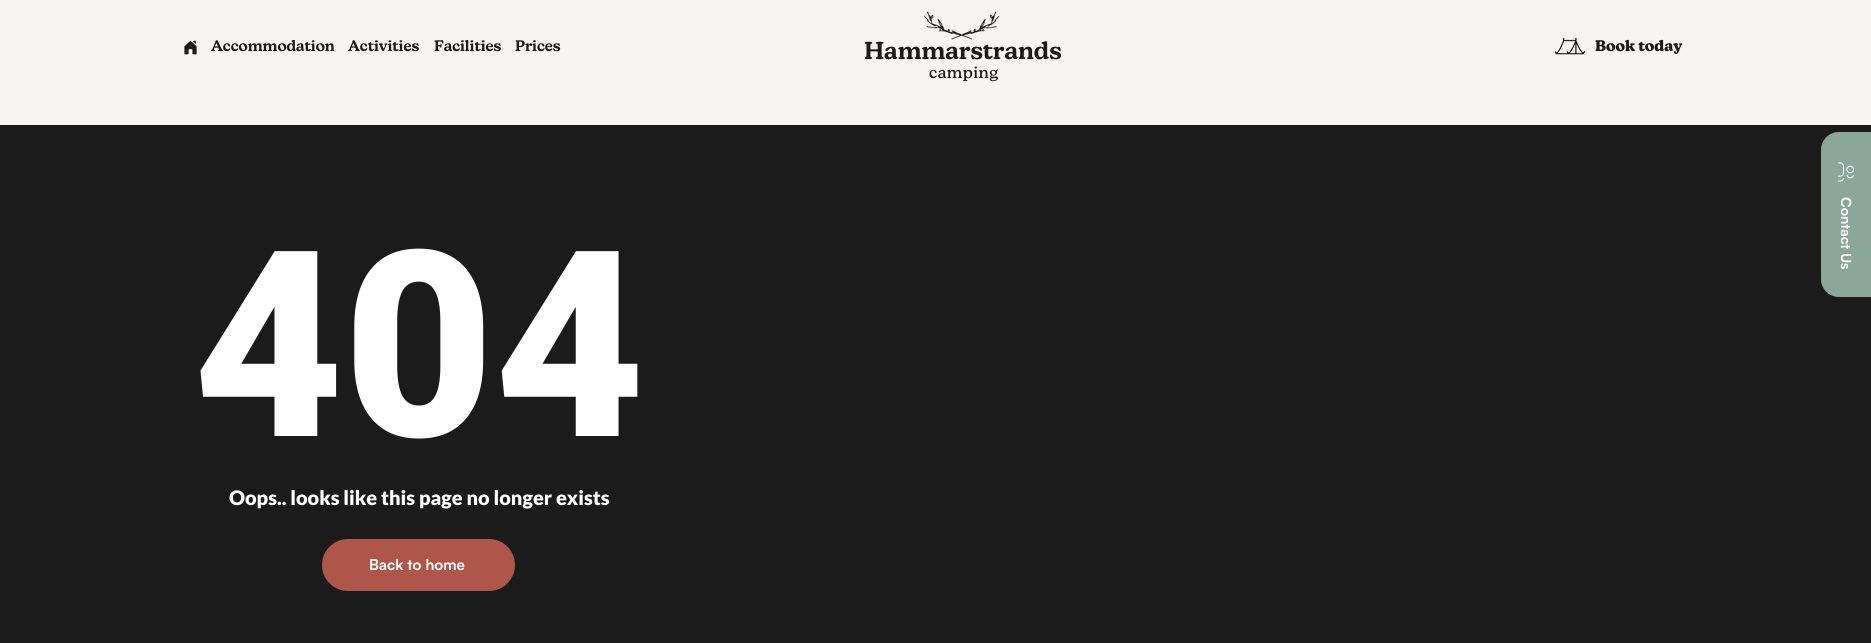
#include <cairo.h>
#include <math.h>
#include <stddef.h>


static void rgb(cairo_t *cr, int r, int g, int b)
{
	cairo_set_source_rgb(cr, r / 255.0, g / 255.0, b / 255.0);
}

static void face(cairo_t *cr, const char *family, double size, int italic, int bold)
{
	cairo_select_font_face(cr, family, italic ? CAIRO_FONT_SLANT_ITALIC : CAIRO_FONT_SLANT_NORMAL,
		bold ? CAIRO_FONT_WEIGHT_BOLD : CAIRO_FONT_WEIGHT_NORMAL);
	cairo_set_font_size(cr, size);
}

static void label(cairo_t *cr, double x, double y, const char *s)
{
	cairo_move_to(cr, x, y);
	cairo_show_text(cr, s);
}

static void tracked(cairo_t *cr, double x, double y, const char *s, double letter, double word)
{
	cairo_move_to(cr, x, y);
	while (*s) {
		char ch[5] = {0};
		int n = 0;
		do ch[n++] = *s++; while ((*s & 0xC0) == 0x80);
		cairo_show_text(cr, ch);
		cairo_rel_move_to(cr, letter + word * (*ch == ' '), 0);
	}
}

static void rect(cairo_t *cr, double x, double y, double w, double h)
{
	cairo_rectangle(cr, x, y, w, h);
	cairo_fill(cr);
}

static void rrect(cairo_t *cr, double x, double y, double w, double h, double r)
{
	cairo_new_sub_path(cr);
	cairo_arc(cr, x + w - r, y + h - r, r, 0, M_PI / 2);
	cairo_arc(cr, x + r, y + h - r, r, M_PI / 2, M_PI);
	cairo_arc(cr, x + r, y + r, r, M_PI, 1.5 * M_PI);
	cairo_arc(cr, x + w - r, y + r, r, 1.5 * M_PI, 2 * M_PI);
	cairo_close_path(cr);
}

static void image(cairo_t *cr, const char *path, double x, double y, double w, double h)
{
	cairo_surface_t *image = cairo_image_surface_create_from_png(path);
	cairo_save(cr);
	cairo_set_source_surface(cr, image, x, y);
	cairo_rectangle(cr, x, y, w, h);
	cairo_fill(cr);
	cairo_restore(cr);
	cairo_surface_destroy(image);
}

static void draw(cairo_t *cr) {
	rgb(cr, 28, 27, 27);
	cairo_paint(cr);
	rgb(cr, 246, 245, 243);
	rect(cr, 0, 0, 1871, 125);
	image(cr, "image0.png", 184, 40, 13, 15);
	face(cr, "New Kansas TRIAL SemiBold", 15, 0, 0);
	rgb(cr, 28, 27, 27);
	label(cr, 211, 51, "Accommodation");
	label(cr, 348, 51, "Activities");
	label(cr, 434, 51, "Facilities");
	label(cr, 515, 51, "Prices");
	image(cr, "image1.png", 924, 11, 76, 29);
	face(cr, "New Kansas TRIAL SemiBold", 24, 0, 0);
	label(cr, 864, 59, "Hammarstrands");
	face(cr, "New Kansas TRIAL Medium", 16, 0, 0);
	tracked(cr, 929, 78, "camping", 0.5, 0);
	image(cr, "image2.png", 1555, 37, 30, 18);
	face(cr, "New Kansas TRIAL", 15, 0, 1);
	label(cr, 1595, 51, "Book today");
	rgb(cr, 138, 167, 153);
	cairo_new_path(cr);
	cairo_move_to(cr, 1871, 132);
	cairo_line_to(cr, 1871, 297);
	cairo_line_to(cr, 1839, 297);
	cairo_curve_to(cr, 1829, 297, 1821, 289, 1821, 279);
	cairo_line_to(cr, 1821, 150);
	cairo_curve_to(cr, 1821, 140, 1829, 132, 1839, 132);
	cairo_close_path(cr);
	cairo_fill(cr);
	image(cr, "image3.png", 1838, 162, 16, 20);
	face(cr, "Satoshi", 14, 0, 1);
	rgb(cr, 255, 255, 255);
	cairo_save(cr);
	cairo_translate(cr, 1841, 197);
	cairo_rotate(cr, 90 * M_PI / 180);
	label(cr, 0, 0, "Contact Us");
	cairo_restore(cr);
	face(cr, "Roboto Black", 260, 0, 0);
	label(cr, 193, 436, "404");
	face(cr, "Lato Black", 20, 0, 0);
	label(cr, 229, 505, "Oops.. looks like this page no longer exists");
	rgb(cr, 173, 86, 73);
	rrect(cr, 322, 539, 193, 52, 26);
	cairo_fill(cr);
	face(cr, "Satoshi", 15, 0, 1);
	rgb(cr, 255, 255, 255);
	label(cr, 369, 570, "Back to home");
}

int main(void) {
	cairo_surface_t *surface = cairo_image_surface_create(CAIRO_FORMAT_RGB24, 1871, 643);
	cairo_t *cr = cairo_create(surface);
	cairo_font_options_t *options = cairo_font_options_create();
	cairo_font_options_set_hint_metrics(options, CAIRO_HINT_METRICS_OFF);
	cairo_font_options_set_hint_style(options, CAIRO_HINT_STYLE_NONE);
	cairo_set_font_options(cr, options);
	cairo_set_miter_limit(cr, 4);
	draw(cr);
	cairo_surface_write_to_png(surface, "render.png");
	cairo_font_options_destroy(options);
	cairo_destroy(cr);
	cairo_surface_destroy(surface);
	return 0;
}
